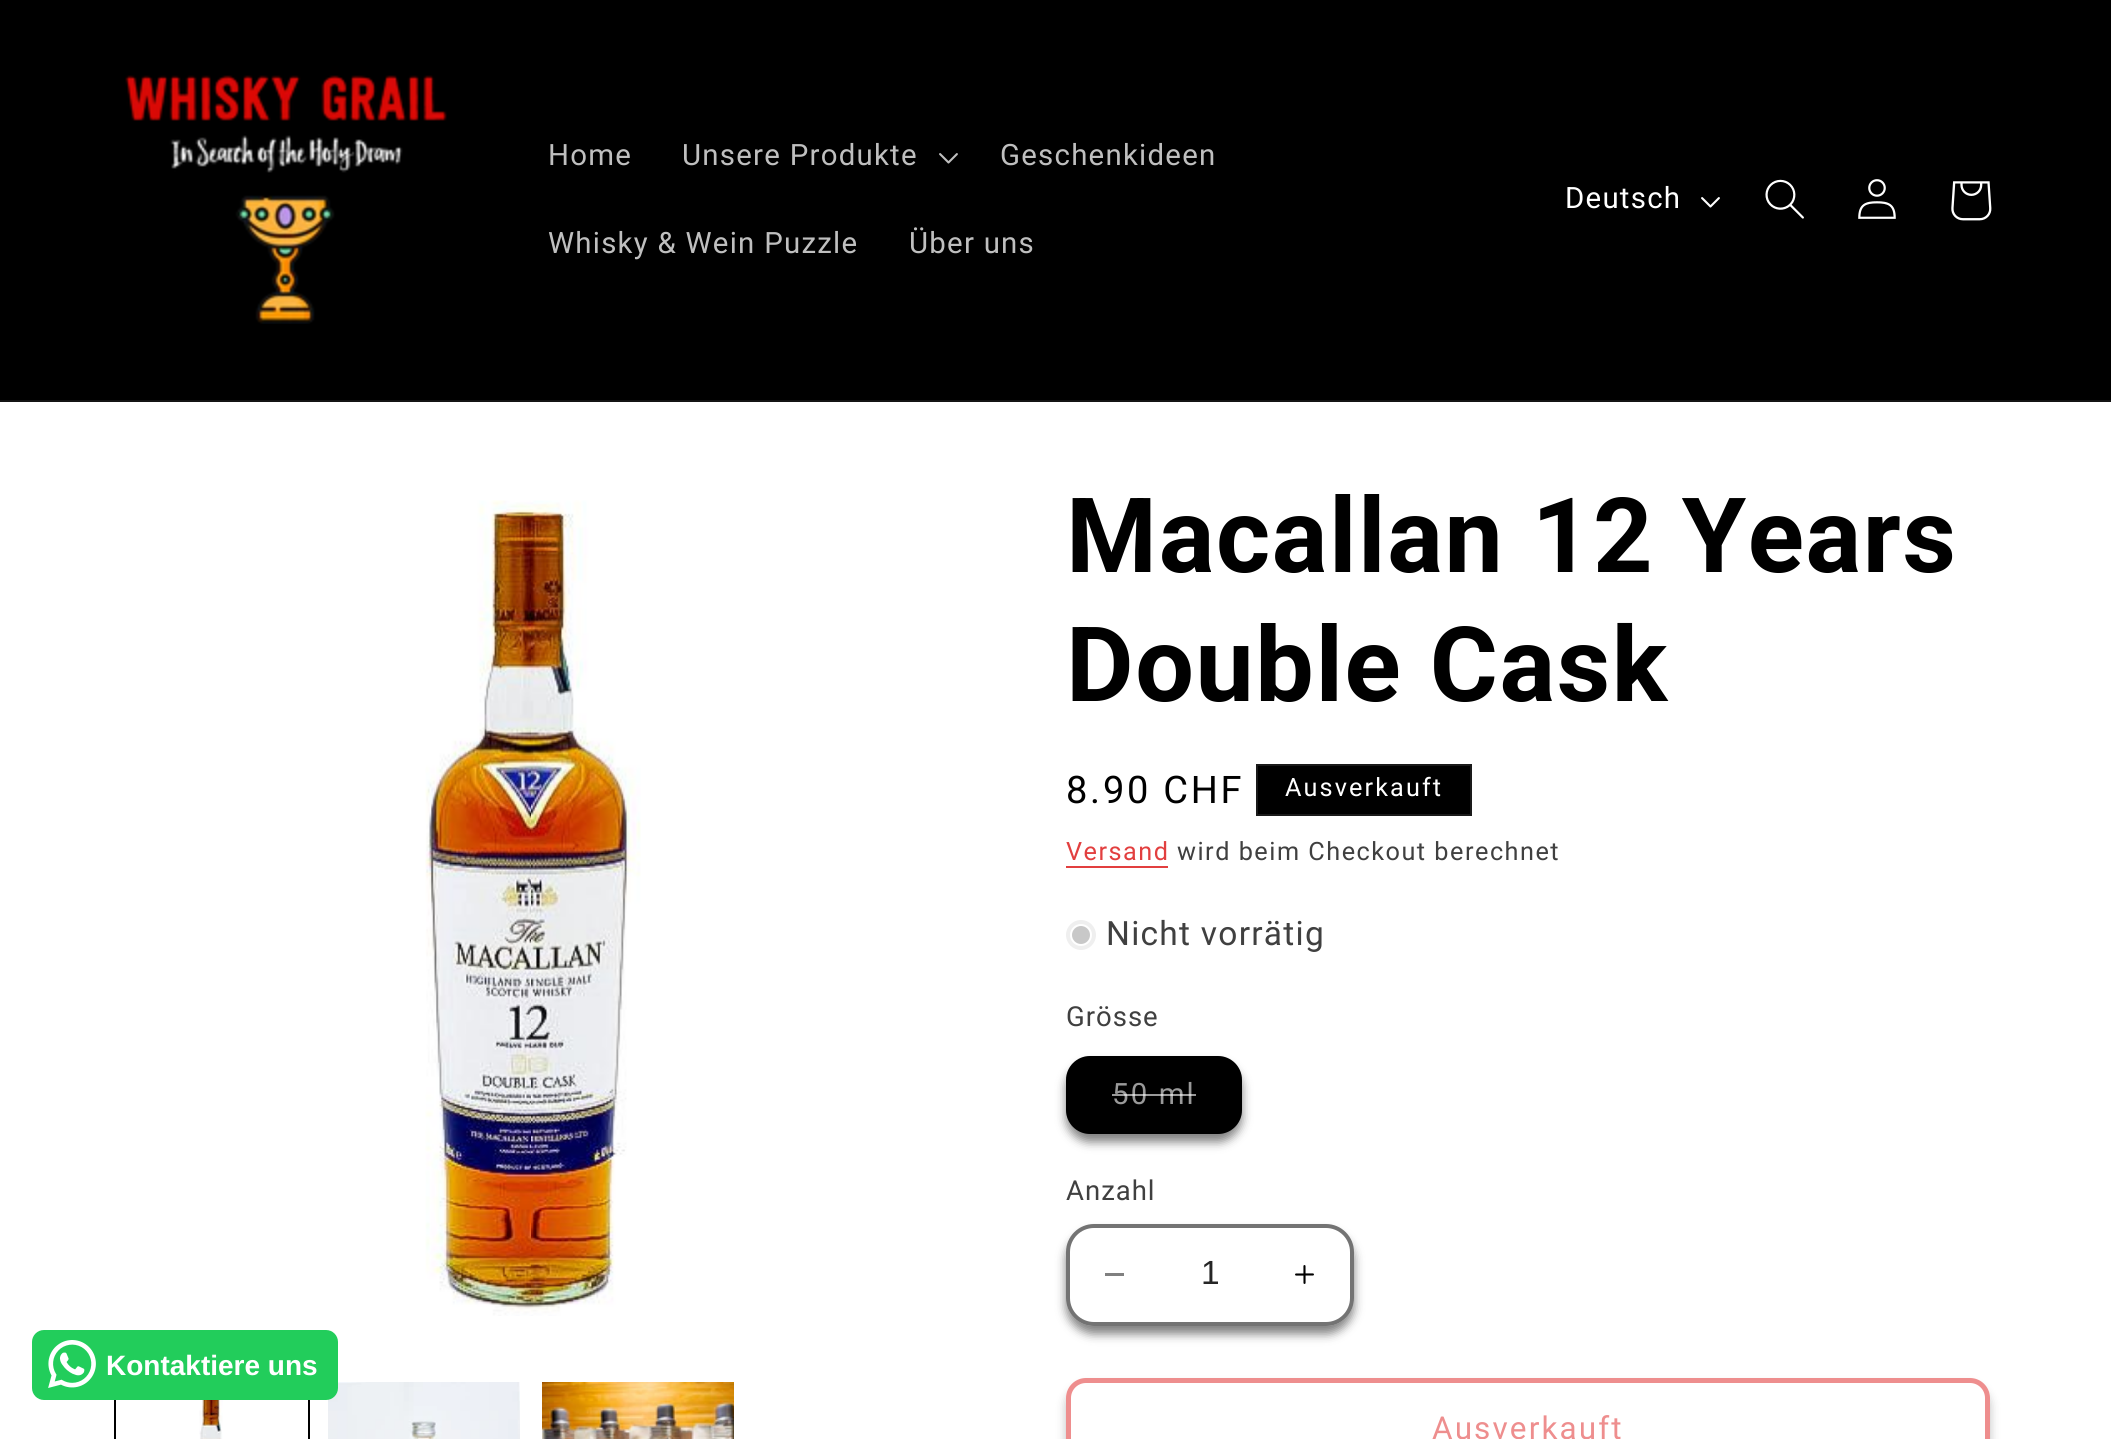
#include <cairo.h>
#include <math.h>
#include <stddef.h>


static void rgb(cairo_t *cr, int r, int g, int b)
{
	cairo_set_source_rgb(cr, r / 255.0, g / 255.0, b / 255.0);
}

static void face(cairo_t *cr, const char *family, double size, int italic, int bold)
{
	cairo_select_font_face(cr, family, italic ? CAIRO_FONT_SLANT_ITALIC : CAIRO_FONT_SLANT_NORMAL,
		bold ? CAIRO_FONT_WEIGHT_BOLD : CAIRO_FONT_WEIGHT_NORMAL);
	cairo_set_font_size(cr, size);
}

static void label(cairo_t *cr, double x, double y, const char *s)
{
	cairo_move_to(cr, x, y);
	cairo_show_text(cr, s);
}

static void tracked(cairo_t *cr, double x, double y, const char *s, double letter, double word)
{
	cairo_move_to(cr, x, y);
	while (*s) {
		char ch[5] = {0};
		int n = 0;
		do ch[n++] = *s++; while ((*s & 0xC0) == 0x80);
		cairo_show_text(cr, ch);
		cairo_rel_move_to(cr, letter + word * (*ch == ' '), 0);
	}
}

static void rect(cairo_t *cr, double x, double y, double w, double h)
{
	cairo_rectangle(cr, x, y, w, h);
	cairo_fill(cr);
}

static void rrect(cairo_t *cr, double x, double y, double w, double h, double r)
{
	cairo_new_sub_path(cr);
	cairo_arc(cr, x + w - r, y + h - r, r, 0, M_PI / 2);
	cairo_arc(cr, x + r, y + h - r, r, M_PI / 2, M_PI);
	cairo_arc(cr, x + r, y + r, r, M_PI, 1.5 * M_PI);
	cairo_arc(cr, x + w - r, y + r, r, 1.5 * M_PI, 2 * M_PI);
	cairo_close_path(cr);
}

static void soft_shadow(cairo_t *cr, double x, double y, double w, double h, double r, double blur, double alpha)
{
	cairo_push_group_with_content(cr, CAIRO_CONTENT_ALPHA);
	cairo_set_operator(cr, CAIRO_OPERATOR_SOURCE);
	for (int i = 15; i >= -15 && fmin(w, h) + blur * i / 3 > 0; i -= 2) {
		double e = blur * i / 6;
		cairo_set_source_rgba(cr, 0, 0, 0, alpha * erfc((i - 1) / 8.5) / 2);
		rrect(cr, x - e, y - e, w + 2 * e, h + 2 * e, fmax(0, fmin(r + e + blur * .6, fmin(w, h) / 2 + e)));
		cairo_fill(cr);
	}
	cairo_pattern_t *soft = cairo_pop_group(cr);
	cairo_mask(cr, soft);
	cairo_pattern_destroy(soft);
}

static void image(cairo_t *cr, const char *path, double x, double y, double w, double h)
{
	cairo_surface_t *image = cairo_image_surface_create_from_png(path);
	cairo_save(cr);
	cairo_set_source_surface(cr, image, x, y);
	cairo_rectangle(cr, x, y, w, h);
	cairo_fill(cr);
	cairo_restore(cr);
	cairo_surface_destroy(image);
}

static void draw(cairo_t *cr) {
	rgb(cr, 255, 255, 255);
	cairo_paint(cr);
	rgb(cr, 0, 0, 0);
	rect(cr, 0, 0, 2111, 400);
	rgb(cr, 20, 20, 20);
	rect(cr, 0, 400, 2111, 2);
	image(cr, "image0.png", 125, 75, 322, 249);
	face(cr, "Roboto", 29.4, 0, 0);
	rgb(cr, 191, 191, 191);
	tracked(cr, 548, 165, "Home", 1.25, 0);
	tracked(cr, 682, 165, "Unsere Produkte", 1.25, 0);
	image(cr, "image1.png", 939, 153, 19, 11);
	tracked(cr, 1000, 165, "Geschenkideen", 1.25, 0);
	tracked(cr, 548, 253, "Whisky & Wein Puzzle", 1.25, 0);
	tracked(cr, 909, 253, "Über uns", 1.25, 0);
	rgb(cr, 255, 255, 255);
	tracked(cr, 1565, 208, "Deutsch", 1.25, 0);
	image(cr, "image2.png", 1701, 197, 19, 11);
	image(cr, "image3.png", 1765, 179, 39, 40);
	image(cr, "image4.png", 1858, 179, 38, 40);
	image(cr, "image5.png", 1951, 181, 41, 40);
	cairo_rectangle(cr, 115, 1381, 194, 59);
	rgb(cr, 0, 0, 0);
	cairo_stroke(cr);
	image(cr, "image9.png", 328, 1382, 192, 57);
	rgb(cr, 34, 205, 91);
	rrect(cr, 32, 1330, 306, 70, 12);
	cairo_fill(cr);
	image(cr, "image6.png", 48, 1340, 48, 48);
	face(cr, "Liberation Sans", 28, 0, 1);
	rgb(cr, 255, 255, 255);
	label(cr, 106, 1375, "Kontaktiere uns");
	image(cr, "image7.png", 425, 500, 216, 816);
	image(cr, "image8.png", 199, 1400, 24, 39);
	image(cr, "image10.png", 542, 1382, 192, 57);
	face(cr, "Roboto", 104, 0, 1);
	rgb(cr, 0, 0, 0);
	tracked(cr, 1066, 572, "Macallan 12 Years", 1.6, 0);
	tracked(cr, 1066, 701, "Double Cask", 1.6, 0);
	face(cr, "Roboto", 38, 0, 0);
	tracked(cr, 1066, 803, "8.90 CHF", 2.75, 0);
	cairo_rectangle(cr, 1257, 765, 214, 50);
	cairo_fill_preserve(cr);
	rgb(cr, 26, 26, 26);
	cairo_stroke(cr);
	face(cr, "Roboto", 25.25, 0, 0);
	rgb(cr, 255, 255, 255);
	tracked(cr, 1285, 796, "Ausverkauft", 2.1, 0);
	rgb(cr, 226, 63, 63);
	tracked(cr, 1066, 860, "Versand", 1.5, 0);
	rect(cr, 1066, 866, 102, 2);
	rgb(cr, 64, 64, 64);
	tracked(cr, 1177, 860, "wird beim Checkout berechnet", 1.5, 0);
	rgb(cr, 239, 239, 239);
	cairo_new_path(cr);
	cairo_arc(cr, 1081, 935, 15, 0, 2 * M_PI);
	cairo_fill(cr);
	rgb(cr, 200, 200, 200);
	cairo_arc(cr, 1081, 935, 10, 0, 2 * M_PI);
	cairo_fill_preserve(cr);
	rgb(cr, 255, 255, 255);
	cairo_stroke(cr);
	face(cr, "Roboto", 33.5, 0, 0);
	rgb(cr, 64, 64, 64);
	tracked(cr, 1106, 945, "Nicht vorrätig", 1.25, 0);
	face(cr, "Roboto", 27.5, 0, 0);
	tracked(cr, 1066, 1026, "Grösse", 1, 0);
	rgb(cr, 0, 0, 0);
	soft_shadow(cr, 1066, 1064, 176, 78, 24, 5, 0.5);
	rgb(cr, 0, 0, 0);
	rrect(cr, 1066, 1056, 176, 78, 24);
	cairo_fill(cr);
	rrect(cr, 1068, 1058, 172, 74, 22);
	cairo_set_source_rgba(cr, 0, 0, 0, 0.1);
	cairo_set_line_width(cr, 4);
	cairo_stroke(cr);
	face(cr, "Roboto", 29.4, 0, 0);
	rgb(cr, 153, 153, 153);
	tracked(cr, 1112, 1104, "50 ml", 2.1, 0);
	cairo_set_source_rgba(cr, 1, 1, 1, 0.6);
	rect(cr, 1112, 1094, 84, 2);
	face(cr, "Roboto", 27.5, 0, 0);
	rgb(cr, 64, 64, 64);
	tracked(cr, 1066, 1200, "Anzahl", 1, 0);
	rgb(cr, 0, 0, 0);
	soft_shadow(cr, 1066, 1232, 288, 102, 28, 5, 0.5);
	rgb(cr, 255, 255, 255);
	rrect(cr, 1066, 1224, 288, 102, 28);
	cairo_fill(cr);
	rgb(cr, 128, 128, 128);
	rect(cr, 1105, 1273, 19, 3);
	image(cr, "image11.png", 1295, 1265, 19, 19);
	rrect(cr, 1068, 1226, 284, 98, 26);
	cairo_set_source_rgba(cr, 0, 0, 0, 0.55);
	cairo_stroke(cr);
	face(cr, "Liberation Sans", 33.5, 0, 0);
	rgb(cr, 38, 38, 38);
	label(cr, 1201, 1284, "1");
	cairo_save(cr);
	cairo_set_fill_rule(cr, CAIRO_FILL_RULE_EVEN_ODD);
	cairo_new_path(cr);
	cairo_move_to(cr, 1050, 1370);
	cairo_line_to(cr, 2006, 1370);
	cairo_line_to(cr, 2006, 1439);
	cairo_line_to(cr, 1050, 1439);
	cairo_close_path(cr);
	cairo_move_to(cr, 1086, 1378);
	cairo_line_to(cr, 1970, 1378);
	cairo_curve_to(cr, 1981, 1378, 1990, 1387, 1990, 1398);
	cairo_line_to(cr, 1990, 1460);
	cairo_curve_to(cr, 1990, 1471, 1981, 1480, 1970, 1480);
	cairo_line_to(cr, 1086, 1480);
	cairo_curve_to(cr, 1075, 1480, 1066, 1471, 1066, 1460);
	cairo_line_to(cr, 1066, 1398);
	cairo_curve_to(cr, 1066, 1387, 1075, 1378, 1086, 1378);
	cairo_close_path(cr);
	cairo_clip(cr);
	rgb(cr, 128, 128, 128);
	soft_shadow(cr, 1066, 1386, 924, 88, 20, 5, 0.5);
	cairo_restore(cr);
	rrect(cr, 1068, 1380, 920, 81, 18);
	rgb(cr, 255, 255, 255);
	cairo_stroke(cr);
	rrect(cr, 1068.5, 1380.5, 919, 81, 17.5);
	rgb(cr, 238, 142, 142);
	cairo_set_line_width(cr, 5);
	cairo_stroke(cr);
	face(cr, "Roboto", 31.5, 0, 0);
	tracked(cr, 1432, 1439, "Ausverkauft", 2.1, 0);
}

int main(void) {
	cairo_surface_t *surface = cairo_image_surface_create(CAIRO_FORMAT_RGB24, 2111, 1439);
	cairo_t *cr = cairo_create(surface);
	cairo_font_options_t *options = cairo_font_options_create();
	cairo_font_options_set_hint_metrics(options, CAIRO_HINT_METRICS_OFF);
	cairo_font_options_set_hint_style(options, CAIRO_HINT_STYLE_NONE);
	cairo_set_font_options(cr, options);
	cairo_set_miter_limit(cr, 4);
	draw(cr);
	cairo_surface_write_to_png(surface, "render.png");
	cairo_font_options_destroy(options);
	cairo_destroy(cr);
	cairo_surface_destroy(surface);
	return 0;
}
